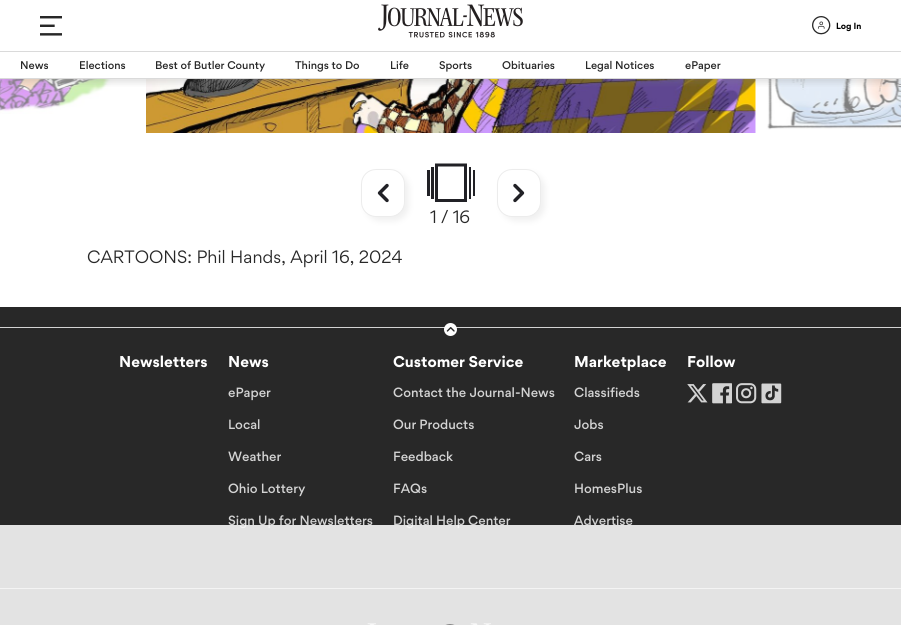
#include <cairo.h>
#include <math.h>
#include <stddef.h>


static void rgb(cairo_t *cr, int r, int g, int b)
{
	cairo_set_source_rgb(cr, r / 255.0, g / 255.0, b / 255.0);
}

static void face(cairo_t *cr, const char *family, double size, int italic, int bold)
{
	cairo_select_font_face(cr, family, italic ? CAIRO_FONT_SLANT_ITALIC : CAIRO_FONT_SLANT_NORMAL,
		bold ? CAIRO_FONT_WEIGHT_BOLD : CAIRO_FONT_WEIGHT_NORMAL);
	cairo_set_font_size(cr, size);
}

static void label(cairo_t *cr, double x, double y, const char *s)
{
	cairo_move_to(cr, x, y);
	cairo_show_text(cr, s);
}

static void tracked(cairo_t *cr, double x, double y, const char *s, double letter, double word)
{
	cairo_move_to(cr, x, y);
	while (*s) {
		char ch[5] = {0};
		int n = 0;
		do ch[n++] = *s++; while ((*s & 0xC0) == 0x80);
		cairo_show_text(cr, ch);
		cairo_rel_move_to(cr, letter + word * (*ch == ' '), 0);
	}
}

static void rect(cairo_t *cr, double x, double y, double w, double h)
{
	cairo_rectangle(cr, x, y, w, h);
	cairo_fill(cr);
}

static void rrect(cairo_t *cr, double x, double y, double w, double h, double r)
{
	cairo_new_sub_path(cr);
	cairo_arc(cr, x + w - r, y + h - r, r, 0, M_PI / 2);
	cairo_arc(cr, x + r, y + h - r, r, M_PI / 2, M_PI);
	cairo_arc(cr, x + r, y + r, r, M_PI, 1.5 * M_PI);
	cairo_arc(cr, x + w - r, y + r, r, 1.5 * M_PI, 2 * M_PI);
	cairo_close_path(cr);
}

static void soft_shadow(cairo_t *cr, double x, double y, double w, double h, double r, double blur, double alpha)
{
	cairo_push_group_with_content(cr, CAIRO_CONTENT_ALPHA);
	cairo_set_operator(cr, CAIRO_OPERATOR_SOURCE);
	for (int i = 15; i >= -15 && fmin(w, h) + blur * i / 3 > 0; i -= 2) {
		double e = blur * i / 6;
		cairo_set_source_rgba(cr, 0, 0, 0, alpha * erfc((i - 1) / 8.5) / 2);
		rrect(cr, x - e, y - e, w + 2 * e, h + 2 * e, fmax(0, fmin(r + e + blur * .6, fmin(w, h) / 2 + e)));
		cairo_fill(cr);
	}
	cairo_pattern_t *soft = cairo_pop_group(cr);
	cairo_mask(cr, soft);
	cairo_pattern_destroy(soft);
}

static void image(cairo_t *cr, const char *path, double x, double y, double w, double h)
{
	cairo_surface_t *image = cairo_image_surface_create_from_png(path);
	cairo_save(cr);
	cairo_set_source_surface(cr, image, x, y);
	cairo_rectangle(cr, x, y, w, h);
	cairo_fill(cr);
	cairo_restore(cr);
	cairo_surface_destroy(image);
}

static void draw(cairo_t *cr) {
	rgb(cr, 255, 255, 255);
	cairo_paint(cr);
	image(cr, "image0.png", 40, 16, 22, 20);
	image(cr, "image1.png", 378, 4, 145, 34);
	image(cr, "image2.png", 812, 16, 19, 19);
	face(cr, "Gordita", 8, 0, 1);
	rgb(cr, 0, 0, 0);
	label(cr, 836, 29, "Log In");
	image(cr, "image3.png", 0, 79, 122, 35);
	image(cr, "image4.png", 146, 79, 610, 54);
	image(cr, "image5.png", 766, 79, 135, 51);
	cairo_save(cr);
	cairo_rectangle(cr, 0, 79, 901, 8);
	cairo_clip(cr);
	rgb(cr, 133, 133, 133);
	soft_shadow(cr, 4, 55, 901, 28, 0, 3, 0.22);
	cairo_restore(cr);
	rgb(cr, 218, 218, 218);
	rect(cr, 0, 51, 901, 1);
	rect(cr, 0, 78, 901, 1);
	face(cr, "Gordita Medium", 10, 0, 0);
	rgb(cr, 40, 40, 40);
	label(cr, 20, 69, "News");
	label(cr, 79, 69, "Elections");
	label(cr, 155, 69, "Best of Butler County");
	label(cr, 295, 69, "Things to Do");
	label(cr, 390, 69, "Life");
	label(cr, 439, 69, "Sports");
	label(cr, 502, 69, "Obituaries");
	label(cr, 585, 69, "Legal Notices");
	label(cr, 685, 69, "ePaper");
	rgb(cr, 230, 230, 230);
	soft_shadow(cr, 365, 173, 44, 48, 15, 3, 0.6);
	rgb(cr, 255, 255, 255);
	rrect(cr, 361.5, 169.5, 43, 47, 14.5);
	cairo_fill_preserve(cr);
	rgb(cr, 236, 236, 236);
	cairo_set_line_width(cr, 1);
	cairo_stroke(cr);
	image(cr, "image6.png", 377, 183, 12, 20);
	rgb(cr, 33, 33, 38);
	rect(cr, 427, 170, 3, 26);
	rect(cr, 431, 167, 3, 32);
	cairo_set_fill_rule(cr, CAIRO_FILL_RULE_EVEN_ODD);
	cairo_new_path(cr);
	cairo_move_to(cr, 435, 202);
	cairo_line_to(cr, 467, 202);
	cairo_line_to(cr, 467, 163.5);
	cairo_line_to(cr, 435, 163.5);
	cairo_close_path(cr);
	cairo_move_to(cr, 438, 199);
	cairo_line_to(cr, 464, 199);
	cairo_line_to(cr, 464, 166.5);
	cairo_line_to(cr, 438, 166.5);
	cairo_close_path(cr);
	cairo_fill(cr);
	rect(cr, 469, 167, 2, 32);
	rect(cr, 473, 170, 2, 26);
	rgb(cr, 230, 230, 230);
	soft_shadow(cr, 501, 173, 44, 48, 15, 3, 0.6);
	rgb(cr, 255, 255, 255);
	rrect(cr, 497.5, 169.5, 43, 47, 14.5);
	cairo_fill_preserve(cr);
	rgb(cr, 236, 236, 236);
	cairo_stroke(cr);
	image(cr, "image7.png", 513, 183, 12, 20);
	face(cr, "Gordita", 16, 0, 0);
	rgb(cr, 40, 40, 40);
	tracked(cr, 430, 223, "1 / 16", -0.25, 0);
	label(cr, 87, 263, "CARTOONS: Phil Hands, April 16, 2024");
	rect(cr, 0, 307, 901, 318);
	rgb(cr, 211, 211, 211);
	rect(cr, 0, 327, 901, 1);
	image(cr, "image8.png", 444, 323, 13, 13);
	face(cr, "Gordita", 14, 0, 1);
	rgb(cr, 255, 255, 255);
	label(cr, 119, 367, "Newsletters");
	label(cr, 228, 367, "News");
	face(cr, "Gordita Medium", 12, 0, 0);
	rgb(cr, 211, 211, 211);
	label(cr, 228, 397, "ePaper");
	label(cr, 228, 429, "Local");
	label(cr, 228, 461, "Weather");
	label(cr, 228, 493, "Ohio Lottery");
	label(cr, 228, 525, "Sign Up for Newsletters");
	face(cr, "Gordita", 14, 0, 1);
	rgb(cr, 255, 255, 255);
	label(cr, 393, 367, "Customer Service");
	face(cr, "Gordita Medium", 12, 0, 0);
	rgb(cr, 211, 211, 211);
	label(cr, 393, 397, "Contact the Journal-News");
	label(cr, 393, 429, "Our Products");
	label(cr, 393, 461, "Feedback");
	label(cr, 393, 493, "FAQs");
	label(cr, 393, 525, "Digital Help Center");
	face(cr, "Gordita", 14, 0, 1);
	rgb(cr, 255, 255, 255);
	label(cr, 574, 367, "Marketplace");
	face(cr, "Gordita Medium", 12, 0, 0);
	rgb(cr, 211, 211, 211);
	label(cr, 574, 397, "Classifieds");
	label(cr, 574, 429, "Jobs");
	label(cr, 574, 461, "Cars");
	label(cr, 574, 493, "HomesPlus");
	label(cr, 574, 525, "Advertise");
	face(cr, "Gordita", 14, 0, 1);
	rgb(cr, 255, 255, 255);
	label(cr, 687, 367, "Follow");
	image(cr, "image9.png", 687, 384, 21, 19);
	image(cr, "image10.png", 712, 383, 20, 21);
	image(cr, "image11.png", 736, 383, 21, 21);
	image(cr, "image12.png", 761, 383, 21, 21);
	rgb(cr, 211, 211, 211);
	rect(cr, 0, 588, 901, 1);
	image(cr, "image13.png", 367, 623, 124, 2);
	cairo_set_source_rgba(cr, 0.969, 0.969, 0.969, 0.9);
	rect(cr, 0, 525, 901, 100);
	rrect(cr, 439.5, 624.5, 21, 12, 10.5);
	rgb(cr, 242, 242, 242);
	cairo_stroke(cr);
	rrect(cr, 439.5, 624.5, 21, 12, 10.5);
	rgb(cr, 136, 136, 136);
	cairo_stroke(cr);
}

int main(void) {
	cairo_surface_t *surface = cairo_image_surface_create(CAIRO_FORMAT_RGB24, 901, 625);
	cairo_t *cr = cairo_create(surface);
	cairo_font_options_t *options = cairo_font_options_create();
	cairo_font_options_set_hint_metrics(options, CAIRO_HINT_METRICS_OFF);
	cairo_font_options_set_hint_style(options, CAIRO_HINT_STYLE_NONE);
	cairo_set_font_options(cr, options);
	cairo_set_miter_limit(cr, 4);
	draw(cr);
	cairo_surface_write_to_png(surface, "render.png");
	cairo_font_options_destroy(options);
	cairo_destroy(cr);
	cairo_surface_destroy(surface);
	return 0;
}
